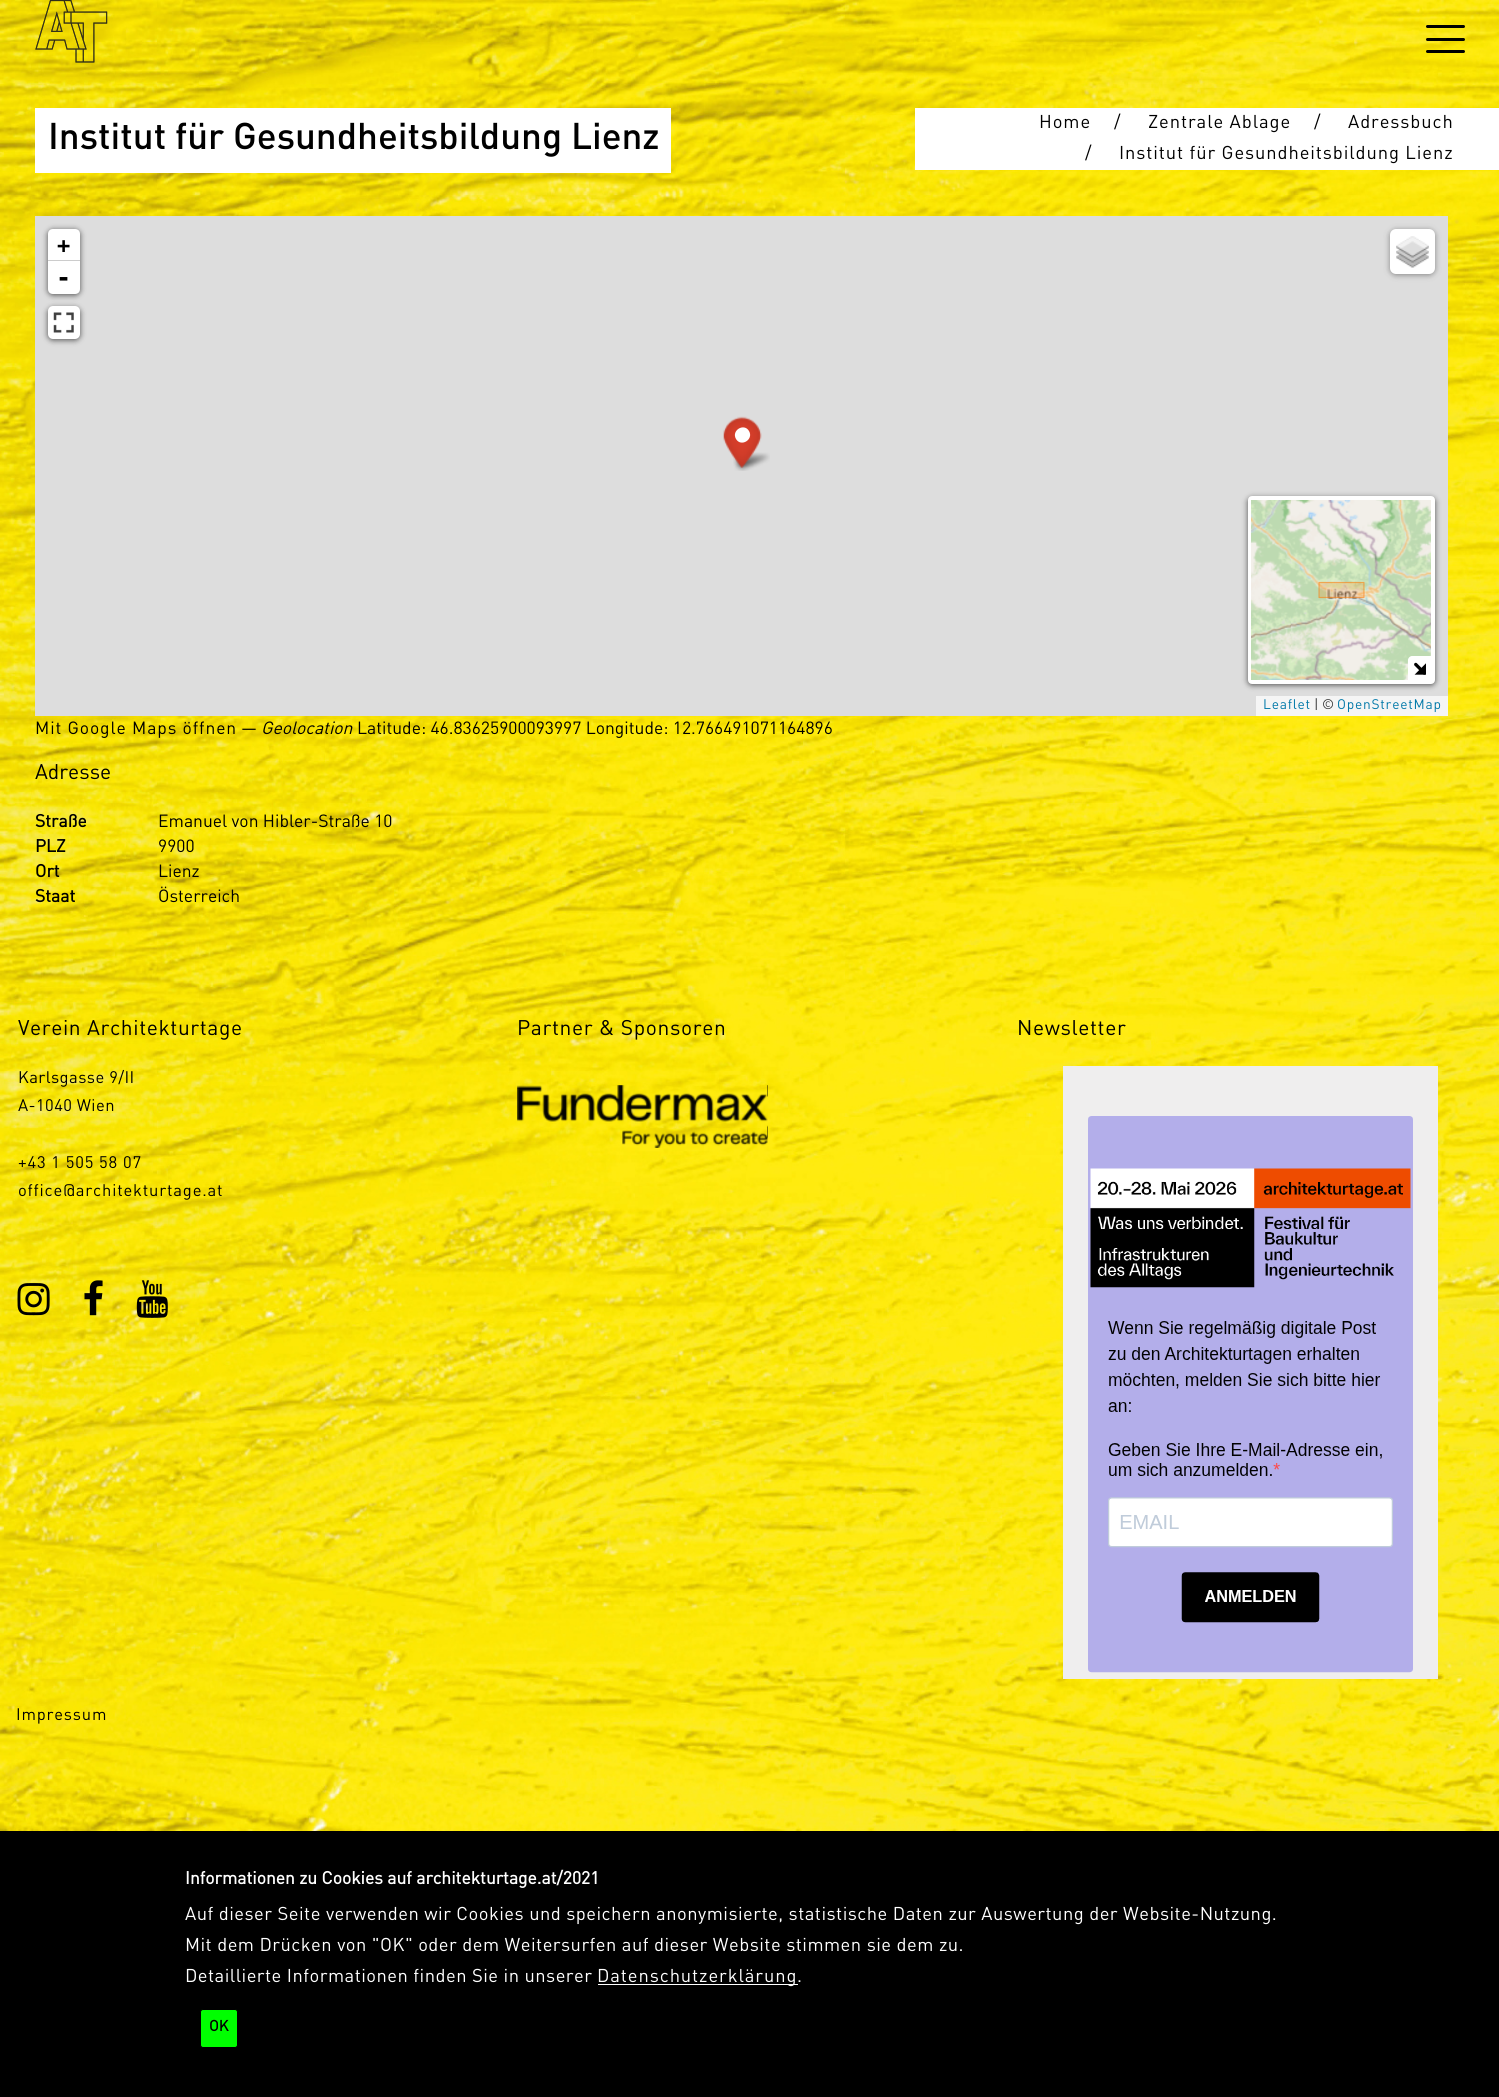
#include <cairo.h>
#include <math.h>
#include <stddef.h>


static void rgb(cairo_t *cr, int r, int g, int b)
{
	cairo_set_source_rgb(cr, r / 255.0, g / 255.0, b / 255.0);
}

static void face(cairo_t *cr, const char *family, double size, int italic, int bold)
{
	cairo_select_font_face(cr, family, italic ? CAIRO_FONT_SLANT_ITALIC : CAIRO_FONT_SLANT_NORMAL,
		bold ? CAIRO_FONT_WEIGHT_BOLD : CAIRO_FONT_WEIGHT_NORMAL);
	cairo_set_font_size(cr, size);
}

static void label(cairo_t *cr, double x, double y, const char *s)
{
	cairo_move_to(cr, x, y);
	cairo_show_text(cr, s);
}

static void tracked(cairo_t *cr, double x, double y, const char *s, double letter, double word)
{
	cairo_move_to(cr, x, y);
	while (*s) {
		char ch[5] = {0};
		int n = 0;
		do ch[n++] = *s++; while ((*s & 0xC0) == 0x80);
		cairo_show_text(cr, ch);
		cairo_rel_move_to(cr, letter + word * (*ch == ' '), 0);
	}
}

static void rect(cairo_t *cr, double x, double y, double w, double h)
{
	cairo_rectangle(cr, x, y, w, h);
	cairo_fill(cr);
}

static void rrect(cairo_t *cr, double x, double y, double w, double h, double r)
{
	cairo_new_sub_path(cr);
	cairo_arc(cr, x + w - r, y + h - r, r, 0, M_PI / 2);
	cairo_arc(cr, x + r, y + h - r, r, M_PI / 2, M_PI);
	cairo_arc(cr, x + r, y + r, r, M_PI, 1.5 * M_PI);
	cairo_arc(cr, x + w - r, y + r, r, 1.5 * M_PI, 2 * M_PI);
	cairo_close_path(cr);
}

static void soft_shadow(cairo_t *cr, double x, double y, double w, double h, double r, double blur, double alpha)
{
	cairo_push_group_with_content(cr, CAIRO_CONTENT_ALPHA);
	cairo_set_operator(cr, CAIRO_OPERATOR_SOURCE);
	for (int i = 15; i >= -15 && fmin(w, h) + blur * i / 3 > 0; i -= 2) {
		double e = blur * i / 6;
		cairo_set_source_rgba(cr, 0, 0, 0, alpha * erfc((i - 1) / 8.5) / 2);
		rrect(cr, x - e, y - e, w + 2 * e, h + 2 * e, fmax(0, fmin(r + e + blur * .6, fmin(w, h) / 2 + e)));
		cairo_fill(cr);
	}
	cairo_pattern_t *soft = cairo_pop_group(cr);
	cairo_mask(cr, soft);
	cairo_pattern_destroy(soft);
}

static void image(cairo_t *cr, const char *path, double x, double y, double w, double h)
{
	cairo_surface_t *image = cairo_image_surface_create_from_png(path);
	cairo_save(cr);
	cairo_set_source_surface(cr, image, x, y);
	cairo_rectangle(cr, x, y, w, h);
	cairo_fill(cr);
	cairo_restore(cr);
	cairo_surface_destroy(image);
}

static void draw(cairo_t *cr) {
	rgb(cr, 255, 255, 255);
	cairo_paint(cr);
	image(cr, "image0.png", 0, 0, 1499, 1831);
	image(cr, "image1.png", 35, 0, 73, 63);
	rgb(cr, 0, 0, 0);
	rrect(cr, 1426, 38, 39, 3, 1.5);
	cairo_fill(cr);
	rrect(cr, 1426, 25, 39, 3, 1.5);
	cairo_fill(cr);
	rrect(cr, 1426, 50, 39, 3, 1.5);
	cairo_fill(cr);
	rgb(cr, 255, 255, 255);
	rect(cr, 35, 108, 636, 65);
	face(cr, "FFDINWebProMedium", 36.75, 0, 0);
	rgb(cr, 0, 0, 0);
	label(cr, 48, 149, "Institut für Gesundheitsbildung Lienz");
	rgb(cr, 255, 255, 255);
	rect(cr, 915, 108, 584, 62);
	face(cr, "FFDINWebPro", 18.38, 0, 0);
	rgb(cr, 0, 0, 0);
	tracked(cr, 1039, 128, "Home", 0.9, 0);
	tracked(cr, 1114, 128, "/", 0.46, 0);
	tracked(cr, 1148, 128, "Zentrale Ablage", 0.9, 0);
	tracked(cr, 1314, 128, "/", 0.46, 0);
	tracked(cr, 1348, 128, "Adressbuch", 0.9, 0);
	tracked(cr, 1085, 159, "/", 0.46, 0);
	tracked(cr, 1119, 159, "Institut für Gesundheitsbildung Lienz", 0.9, 0);
	rgb(cr, 221, 221, 221);
	rect(cr, 35, 216, 1413, 500);
	rgb(cr, 0, 0, 0);
	soft_shadow(cr, 48, 230, 32, 65, 5, 3, 0.65);
	rgb(cr, 255, 255, 255);
	cairo_new_path(cr);
	cairo_move_to(cr, 53, 229);
	cairo_line_to(cr, 75, 229);
	cairo_curve_to(cr, 78, 229, 80, 231, 80, 234);
	cairo_line_to(cr, 80, 261);
	cairo_line_to(cr, 48, 261);
	cairo_line_to(cr, 48, 234);
	cairo_curve_to(cr, 48, 231, 50, 229, 53, 229);
	cairo_close_path(cr);
	cairo_fill(cr);
	rgb(cr, 204, 204, 204);
	rect(cr, 48, 260, 32, 1);
	face(cr, "DejaVu Sans Mono", 22, 0, 1);
	rgb(cr, 0, 0, 0);
	tracked(cr, 57, 253, "+", 1, 0);
	rgb(cr, 255, 255, 255);
	cairo_new_path(cr);
	cairo_move_to(cr, 48, 261);
	cairo_line_to(cr, 80, 261);
	cairo_line_to(cr, 80, 289);
	cairo_curve_to(cr, 80, 292, 78, 294, 75, 294);
	cairo_line_to(cr, 53, 294);
	cairo_curve_to(cr, 50, 294, 48, 292, 48, 289);
	cairo_close_path(cr);
	cairo_fill(cr);
	face(cr, "DejaVu Sans Mono", 25, 0, 1);
	rgb(cr, 0, 0, 0);
	tracked(cr, 56, 286, "-", 1, 0);
	rgb(cr, 0, 0, 0);
	soft_shadow(cr, 48, 308, 32, 32, 5, 3, 0.65);
	rgb(cr, 255, 255, 255);
	rrect(cr, 48, 306, 32, 33, 5);
	cairo_fill(cr);
	image(cr, "image2.png", 53, 312, 21, 21);
	rgb(cr, 0, 0, 0);
	soft_shadow(cr, 1390, 230, 45, 45, 6, 3, 0.4);
	rgb(cr, 255, 255, 255);
	rrect(cr, 1390, 229, 45, 45, 6);
	cairo_fill(cr);
	image(cr, "image3.png", 1396, 236, 33, 32);
	rgb(cr, 0, 0, 0);
	soft_shadow(cr, 1248, 498, 187, 187, 4, 3, 0.65);
	rrect(cr, 1250, 498, 183, 184, 2);
	rgb(cr, 255, 255, 255);
	cairo_set_line_width(cr, 4);
	cairo_stroke(cr);
	image(cr, "image4.png", 1251, 500, 40, 180);
	image(cr, "image5.png", 1291, 500, 140, 180);
	cairo_set_source_rgba(cr, 1, 0.471, 0, 0.2);
	rect(cr, 1319, 582, 45, 16);
	cairo_new_path(cr);
	cairo_move_to(cr, 1319, 597.5);
	cairo_line_to(cr, 1319, 582.5);
	cairo_line_to(cr, 1364, 582.5);
	cairo_line_to(cr, 1364, 597.5);
	cairo_close_path(cr);
	cairo_set_source_rgba(cr, 1, 0.471, 0, 0.5);
	cairo_set_line_width(cr, 1.2);
	cairo_set_line_cap(cr, CAIRO_LINE_CAP_ROUND);
	cairo_set_line_join(cr, CAIRO_LINE_JOIN_ROUND);
	cairo_stroke(cr);
	rgb(cr, 255, 255, 255);
	cairo_new_path(cr);
	cairo_move_to(cr, 1412, 656);
	cairo_line_to(cr, 1431, 656);
	cairo_line_to(cr, 1431, 680);
	cairo_line_to(cr, 1408, 680);
	cairo_line_to(cr, 1408, 660);
	cairo_curve_to(cr, 1408, 658, 1410, 656, 1412, 656);
	cairo_close_path(cr);
	cairo_fill(cr);
	image(cr, "image6.png", 1414, 662, 12, 13);
	rgb(cr, 245, 245, 245);
	rect(cr, 1256, 696, 192, 20);
	face(cr, "FFDINWebPro", 13.75, 0, 0);
	rgb(cr, 0, 120, 168);
	tracked(cr, 1263, 709, "Leaflet", 0.75, 0);
	rgb(cr, 51, 51, 51);
	label(cr, 1314, 709, "| ©");
	rgb(cr, 0, 120, 168);
	tracked(cr, 1337, 709, "OpenStreetMap", 0.75, 0);
	image(cr, "image8.png", 733, 452, 37, 19);
	image(cr, "image7.png", 723, 416, 39, 52);
	rgb(cr, 255, 255, 255);
	cairo_new_path(cr);
	cairo_move_to(cr, 749, 431);
	cairo_curve_to(cr, 754, 439.5, 741, 447.5, 736, 439);
	cairo_curve_to(cr, 731, 430.5, 744, 422.5, 749, 431);
	cairo_close_path(cr);
	cairo_fill(cr);
	face(cr, "FFDINWebPro", 17.5, 0, 0);
	rgb(cr, 0, 0, 0);
	tracked(cr, 35, 734, "Mit Google Maps öffnen", 0.9, 0);
	label(cr, 241, 734, "—");
	face(cr, "FFDINWebPro", 17.5, 1, 0);
	label(cr, 261, 734, "Geolocation");
	face(cr, "FFDINWebPro", 17.5, 0, 0);
	label(cr, 357, 734, "Latitude: 46.83625900093997 Longitude: 12.766491071164896");
	face(cr, "FFDINWebPro", 21, 0, 0);
	label(cr, 35, 779, "Adresse");
	face(cr, "FFDINWebPro", 17.5, 0, 1);
	label(cr, 35, 827, "Straße");
	face(cr, "FFDINWebPro", 17.5, 0, 0);
	label(cr, 158, 827, "Emanuel von Hibler-Straße 10");
	face(cr, "FFDINWebPro", 17.5, 0, 1);
	label(cr, 35, 852, "PLZ");
	face(cr, "FFDINWebPro", 17.5, 0, 0);
	label(cr, 158, 852, "9900");
	face(cr, "FFDINWebPro", 17.5, 0, 1);
	label(cr, 35, 877, "Ort");
	face(cr, "FFDINWebPro", 17.5, 0, 0);
	label(cr, 158, 877, "Lienz");
	face(cr, "FFDINWebPro", 17.5, 0, 1);
	label(cr, 35, 902, "Staat");
	face(cr, "FFDINWebPro", 17.5, 0, 0);
	label(cr, 158, 902, "Österreich");
	face(cr, "FFDINWebPro", 21, 0, 0);
	tracked(cr, 18, 1035, "Verein Architekturtage", 0.6, 0);
	face(cr, "FFDINWebPro", 16.6, 0, 0);
	tracked(cr, 18, 1083, "Karlsgasse 9/II", 0.4, 0);
	tracked(cr, 18, 1111, "A-1040 Wien", 0.4, 0);
	tracked(cr, 18, 1168, "+43 1 505 58 07", 0.8, 0);
	tracked(cr, 18, 1196, "office@architekturtage.at", 0.8, 0);
	image(cr, "image9.png", 17, 1283, 33, 33);
	image(cr, "image10.png", 84, 1280, 19, 36);
	image(cr, "image11.png", 136, 1280, 32, 38);
	face(cr, "FFDINWebPro", 21, 0, 0);
	tracked(cr, 517, 1035, "Partner & Sponsoren", 0.6, 0);
	image(cr, "image12.png", 517, 1085, 251, 63);
	image(cr, "image13.png", 767, 1085, 1, 53);
	tracked(cr, 1017, 1035, "Newsletter", 0.6, 0);
	image(cr, "image14.png", 1063, 1066, 375, 613);
	face(cr, "FFDINWebPro", 16.5, 0, 0);
	tracked(cr, 16, 1720, "Impressum", 0.8, 0);
	rect(cr, 0, 1831, 1499, 266);
	face(cr, "FFDINWebPro", 17.5, 0, 1);
	rgb(cr, 255, 255, 255);
	label(cr, 185, 1884, "Informationen zu Cookies auf architekturtage.at/2021");
	face(cr, "FFDINWebPro", 18.38, 0, 0);
	tracked(cr, 185, 1920, "Auf dieser Seite verwenden wir Cookies und speichern anonymisierte, statistische Daten zur Auswertung der Website-Nutzung.", 0.46, 0);
	tracked(cr, 185, 1951, "Mit dem Drücken von \"OK\" oder dem Weitersurfen auf dieser Website stimmen sie dem zu.", 0.46, 0);
	tracked(cr, 185, 1982, "Detaillierte Informationen finden Sie in unserer", 0.46, 0);
	rect(cr, 598, 1984, 200, 1);
	tracked(cr, 597, 1982, "Datenschutzerklärung", 0.9, 0);
	tracked(cr, 797, 1982, ".", 0.46, 0);
	rgb(cr, 0, 255, 0);
	rrect(cr, 200.5, 2009.5, 37, 38, 2.5);
	cairo_fill_preserve(cr);
	rgb(cr, 0, 0, 0);
	cairo_set_line_width(cr, 1);
	cairo_set_line_cap(cr, CAIRO_LINE_CAP_BUTT);
	cairo_set_line_join(cr, CAIRO_LINE_JOIN_MITER);
	cairo_stroke(cr);
	face(cr, "FFDINWebPro", 15, 0, 1);
	label(cr, 209, 2031, "OK");
}

int main(void) {
	cairo_surface_t *surface = cairo_image_surface_create(CAIRO_FORMAT_RGB24, 1499, 2097);
	cairo_t *cr = cairo_create(surface);
	cairo_font_options_t *options = cairo_font_options_create();
	cairo_font_options_set_hint_metrics(options, CAIRO_HINT_METRICS_OFF);
	cairo_font_options_set_hint_style(options, CAIRO_HINT_STYLE_NONE);
	cairo_set_font_options(cr, options);
	cairo_set_miter_limit(cr, 4);
	draw(cr);
	cairo_surface_write_to_png(surface, "render.png");
	cairo_font_options_destroy(options);
	cairo_destroy(cr);
	cairo_surface_destroy(surface);
	return 0;
}
